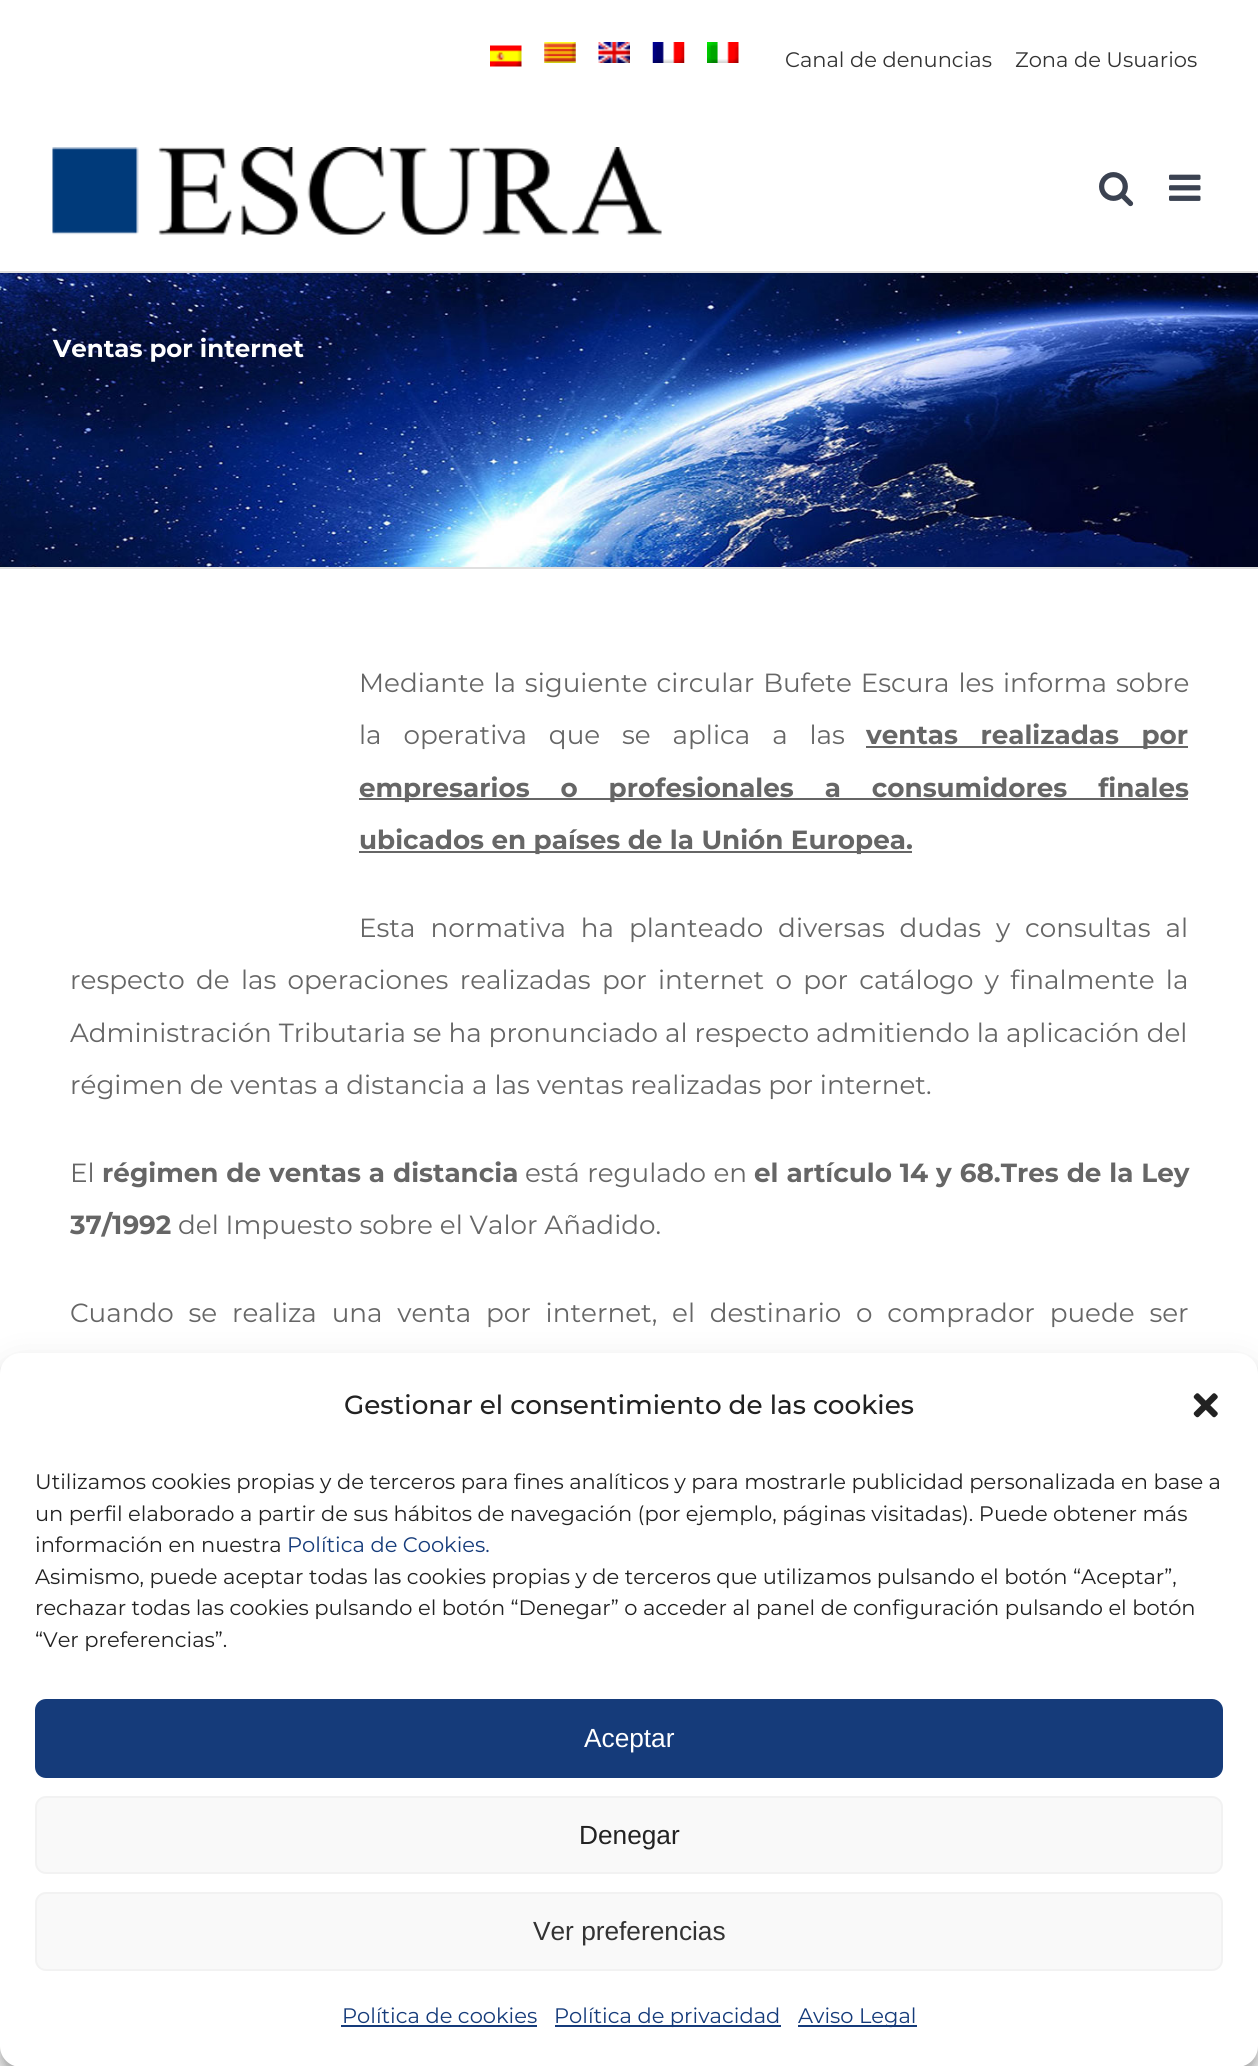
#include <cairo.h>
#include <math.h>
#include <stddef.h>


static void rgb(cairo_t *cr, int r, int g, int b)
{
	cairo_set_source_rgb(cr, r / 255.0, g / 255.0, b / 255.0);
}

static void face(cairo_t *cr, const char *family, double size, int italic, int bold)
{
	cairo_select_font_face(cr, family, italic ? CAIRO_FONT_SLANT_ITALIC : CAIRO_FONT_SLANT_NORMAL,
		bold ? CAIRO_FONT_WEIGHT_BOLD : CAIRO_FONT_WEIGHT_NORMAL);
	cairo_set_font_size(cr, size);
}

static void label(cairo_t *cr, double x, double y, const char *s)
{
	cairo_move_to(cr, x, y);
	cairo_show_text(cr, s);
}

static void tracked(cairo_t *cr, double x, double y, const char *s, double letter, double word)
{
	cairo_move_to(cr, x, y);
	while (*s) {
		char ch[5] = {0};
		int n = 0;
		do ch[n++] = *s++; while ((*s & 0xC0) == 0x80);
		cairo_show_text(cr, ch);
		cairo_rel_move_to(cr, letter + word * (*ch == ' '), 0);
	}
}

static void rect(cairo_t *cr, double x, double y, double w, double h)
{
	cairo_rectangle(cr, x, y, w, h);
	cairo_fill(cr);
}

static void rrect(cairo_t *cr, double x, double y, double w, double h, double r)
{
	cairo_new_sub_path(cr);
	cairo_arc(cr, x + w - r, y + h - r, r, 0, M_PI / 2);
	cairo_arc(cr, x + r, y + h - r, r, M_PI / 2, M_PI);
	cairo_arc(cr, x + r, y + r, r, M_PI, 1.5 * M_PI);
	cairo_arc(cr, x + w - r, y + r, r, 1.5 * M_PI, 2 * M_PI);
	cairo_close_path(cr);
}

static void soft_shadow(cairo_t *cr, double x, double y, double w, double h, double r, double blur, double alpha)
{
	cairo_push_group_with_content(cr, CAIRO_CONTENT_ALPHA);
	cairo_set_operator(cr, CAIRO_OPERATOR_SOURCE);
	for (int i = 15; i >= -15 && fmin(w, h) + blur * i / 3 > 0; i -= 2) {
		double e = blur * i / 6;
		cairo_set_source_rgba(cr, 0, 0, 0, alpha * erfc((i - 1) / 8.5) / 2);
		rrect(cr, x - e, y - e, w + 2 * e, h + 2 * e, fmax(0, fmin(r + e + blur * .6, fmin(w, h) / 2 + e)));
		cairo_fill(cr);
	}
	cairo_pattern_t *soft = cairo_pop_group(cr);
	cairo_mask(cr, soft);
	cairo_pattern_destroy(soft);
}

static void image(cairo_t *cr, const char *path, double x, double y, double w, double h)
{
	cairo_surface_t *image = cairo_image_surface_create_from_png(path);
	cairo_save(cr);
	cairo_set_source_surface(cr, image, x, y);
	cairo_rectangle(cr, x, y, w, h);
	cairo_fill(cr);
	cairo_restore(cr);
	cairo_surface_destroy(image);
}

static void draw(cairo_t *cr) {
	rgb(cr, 255, 255, 255);
	cairo_paint(cr);
	image(cr, "image0.png", 490, 45, 32, 22);
	image(cr, "image1.png", 544, 42, 32, 21);
	image(cr, "image2.png", 598, 42, 32, 21);
	image(cr, "image3.png", 652, 42, 33, 21);
	image(cr, "image4.png", 707, 42, 32, 21);
	face(cr, "Montserrat", 21, 0, 0);
	rgb(cr, 51, 51, 51);
	label(cr, 785, 67, "Canal de denuncias");
	label(cr, 1015, 67, "Zona de Usuarios");
	image(cr, "image5.png", 52, 147, 610, 88);
	image(cr, "image6.png", 1099, 172, 35, 35);
	image(cr, "image7.png", 1169, 174, 32, 27);
	image(cr, "image8.png", 0, 273, 1258, 294);
	rgb(cr, 224, 224, 224);
	rect(cr, 0, 271, 1258, 2);
	rect(cr, 0, 567, 1258, 2);
	face(cr, "Montserrat", 24.5, 0, 1);
	rgb(cr, 255, 255, 255);
	label(cr, 53, 357, "Ventas por internet");
	face(cr, "Montserrat", 26.25, 0, 0);
	rgb(cr, 102, 102, 102);
	tracked(cr, 359, 692, "Mediante la siguiente circular Bufete Escura les informa sobre", 0, 2);
	tracked(cr, 359, 744, "la operativa que se aplica a las", 0, 15);
	rect(cr, 866, 746, 322, 2);
	face(cr, "Montserrat", 26.25, 0, 1);
	tracked(cr, 866, 744, "ventas realizadas por", 0, 15);
	rect(cr, 359, 798, 829, 2);
	tracked(cr, 359, 797, "empresarios o profesionales a consumidores finales", 0, 23.5);
	rect(cr, 359, 851, 553, 2);
	label(cr, 359, 849, "ubicados en países de la Unión Europea.");
	face(cr, "Montserrat", 26.25, 0, 0);
	tracked(cr, 359, 937, "Esta normativa ha planteado diversas dudas y consultas al", 0, 8);
	tracked(cr, 70, 989, "respecto de las operaciones realizadas por internet o por catálogo y finalmente la", 0, 4.4);
	label(cr, 70, 1042, "Administración Tributaria se ha pronunciado al respecto admitiendo la aplicación del");
	label(cr, 70, 1094, "régimen de ventas a distancia a las ventas realizadas por internet.");
	label(cr, 70, 1182, "El");
	face(cr, "Montserrat", 26.25, 0, 1);
	tracked(cr, 102, 1182, "régimen de ventas a distancia", 0, 0.5);
	face(cr, "Montserrat", 26.25, 0, 0);
	tracked(cr, 525, 1182, "está regulado en", 0, 0.5);
	face(cr, "Montserrat", 26.25, 0, 1);
	tracked(cr, 754, 1182, "el artículo 14 y 68.Tres de la Ley", 0, 0.5);
	label(cr, 70, 1234, "37/1992");
	face(cr, "Montserrat", 26.25, 0, 0);
	label(cr, 178, 1234, "del Impuesto sobre el Valor Añadido.");
	tracked(cr, 70, 1322, "Cuando se realiza una venta por internet, el destinario o comprador puede ser", 0, 7.9);
	rgb(cr, 0, 0, 0);
	soft_shadow(cr, 0, 1363, 1258, 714, 21, 5, 0.23);
	soft_shadow(cr, 0, 1370, 1258, 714, 21, 17.5, 0.19);
	rgb(cr, 128, 128, 128);
	soft_shadow(cr, 1136, 1937, 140, 105, 4, 4.5, 1);
	rgb(cr, 255, 255, 255);
	rrect(cr, 0, 1353, 1258, 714, 21);
	cairo_fill(cr);
	face(cr, "Montserrat Medium", 26.25, 0, 0);
	rgb(cr, 34, 34, 34);
	label(cr, 344, 1414, "Gestionar el consentimiento de las cookies");
	image(cr, "image9.png", 1193, 1393, 25, 25);
	face(cr, "Montserrat", 21, 0, 0);
	label(cr, 35, 1489, "Utilizamos cookies propias y de terceros para fines analíticos y para mostrarle publicidad personalizada en base a");
	label(cr, 35, 1521, "un perfil elaborado a partir de sus hábitos de navegación (por ejemplo, páginas visitadas). Puede obtener más");
	label(cr, 35, 1552, "información en nuestra");
	rgb(cr, 21, 59, 122);
	label(cr, 287, 1552, "Política de Cookies.");
	rgb(cr, 34, 34, 34);
	label(cr, 35, 1584, "Asimismo, puede aceptar todas las cookies propias y de terceros que utilizamos pulsando el botón “Aceptar”,");
	label(cr, 35, 1615, "rechazar todas las cookies pulsando el botón “Denegar” o acceder al panel de configuración pulsando el botón");
	label(cr, 35, 1647, "“Ver preferencias”.");
	rgb(cr, 21, 59, 122);
	rrect(cr, 36, 1700, 1186, 77, 10);
	cairo_fill_preserve(cr);
	cairo_stroke(cr);
	face(cr, "Liberation Sans", 26.25, 0, 0);
	rgb(cr, 255, 255, 255);
	label(cr, 584, 1747, "Aceptar");
	rgb(cr, 249, 249, 249);
	rrect(cr, 36, 1797, 1186, 76, 10);
	cairo_fill_preserve(cr);
	rgb(cr, 242, 242, 242);
	cairo_stroke(cr);
	rgb(cr, 34, 34, 34);
	label(cr, 579, 1844, "Denegar");
	rgb(cr, 249, 249, 249);
	rrect(cr, 36, 1893, 1186, 77, 10);
	cairo_fill_preserve(cr);
	rgb(cr, 242, 242, 242);
	cairo_stroke(cr);
	rgb(cr, 51, 51, 51);
	label(cr, 533, 1940, "Ver preferencias");
	face(cr, "Montserrat", 21, 0, 0);
	rgb(cr, 21, 59, 122);
	label(cr, 342, 2023, "Política de cookies");
	rect(cr, 341, 2025, 196, 2);
	rect(cr, 555, 2025, 226, 2);
	label(cr, 554, 2023, "Política de privacidad");
	rect(cr, 798, 2025, 119, 2);
	label(cr, 798, 2023, "Aviso Legal");
}

int main(void) {
	cairo_surface_t *surface = cairo_image_surface_create(CAIRO_FORMAT_RGB24, 1258, 2066);
	cairo_t *cr = cairo_create(surface);
	cairo_font_options_t *options = cairo_font_options_create();
	cairo_font_options_set_hint_metrics(options, CAIRO_HINT_METRICS_OFF);
	cairo_font_options_set_hint_style(options, CAIRO_HINT_STYLE_NONE);
	cairo_set_font_options(cr, options);
	cairo_set_miter_limit(cr, 4);
	draw(cr);
	cairo_surface_write_to_png(surface, "render.png");
	cairo_font_options_destroy(options);
	cairo_destroy(cr);
	cairo_surface_destroy(surface);
	return 0;
}
